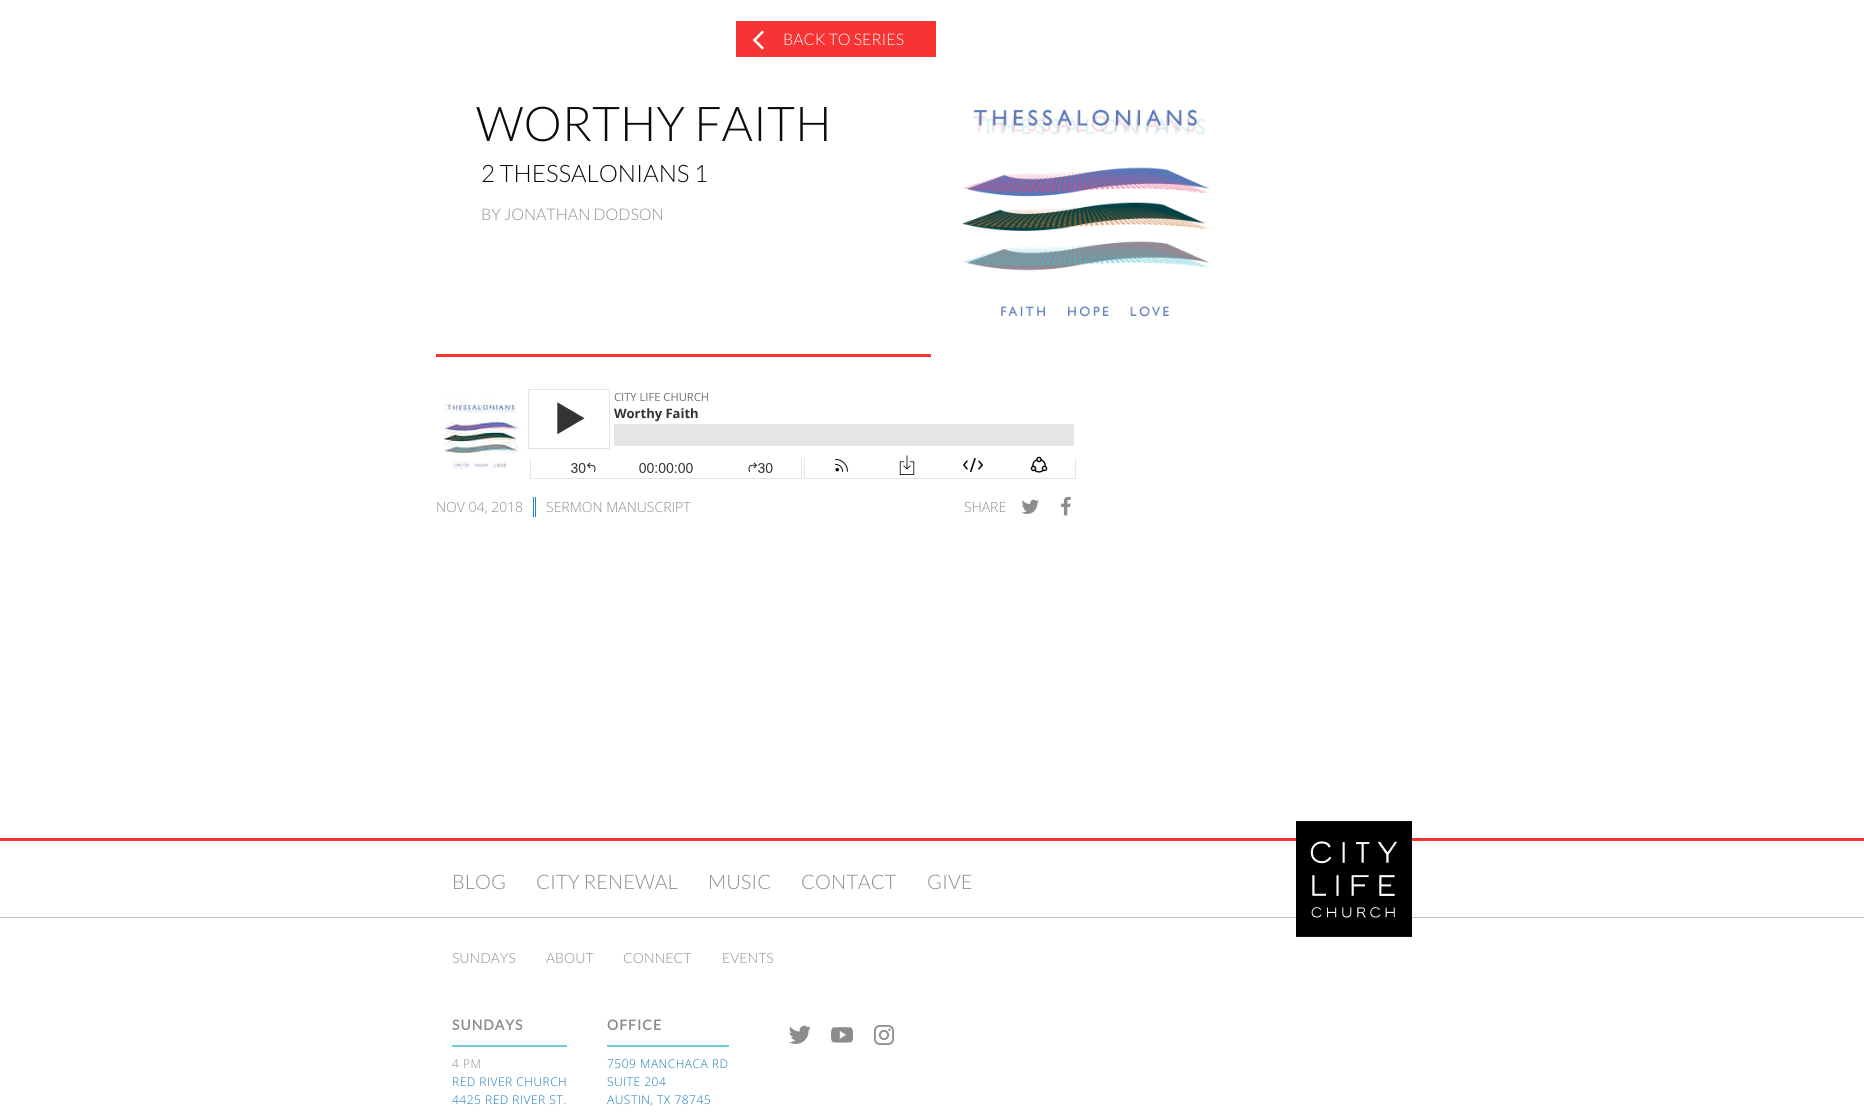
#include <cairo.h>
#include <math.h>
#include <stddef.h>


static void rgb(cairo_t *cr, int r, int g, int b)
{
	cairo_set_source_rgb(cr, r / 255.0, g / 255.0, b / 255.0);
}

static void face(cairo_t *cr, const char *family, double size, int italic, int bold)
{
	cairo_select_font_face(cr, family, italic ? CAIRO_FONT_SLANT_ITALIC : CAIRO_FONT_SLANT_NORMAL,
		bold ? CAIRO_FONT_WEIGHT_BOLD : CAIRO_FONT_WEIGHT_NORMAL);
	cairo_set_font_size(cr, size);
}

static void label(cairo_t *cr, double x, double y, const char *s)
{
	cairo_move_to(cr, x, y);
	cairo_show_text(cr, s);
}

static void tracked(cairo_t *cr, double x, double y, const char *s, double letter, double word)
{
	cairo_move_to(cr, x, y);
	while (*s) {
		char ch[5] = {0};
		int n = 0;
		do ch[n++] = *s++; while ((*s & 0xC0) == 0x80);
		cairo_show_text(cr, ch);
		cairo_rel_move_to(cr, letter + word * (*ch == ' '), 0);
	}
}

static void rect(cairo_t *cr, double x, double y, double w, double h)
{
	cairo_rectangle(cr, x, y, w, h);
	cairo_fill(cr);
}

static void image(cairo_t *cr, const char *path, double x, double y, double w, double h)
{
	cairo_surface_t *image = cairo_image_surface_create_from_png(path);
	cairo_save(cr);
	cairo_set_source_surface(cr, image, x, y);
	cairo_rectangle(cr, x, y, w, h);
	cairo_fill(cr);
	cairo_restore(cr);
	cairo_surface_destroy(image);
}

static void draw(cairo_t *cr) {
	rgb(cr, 255, 255, 255);
	cairo_paint(cr);
	rgb(cr, 248, 51, 51);
	rect(cr, 736, 21, 200, 36);
	image(cr, "image0.png", 752, 30, 12, 20);
	face(cr, "Lato Light", 16, 0, 0);
	rgb(cr, 255, 255, 255);
	label(cr, 783, 45, "BACK TO SERIES");
	image(cr, "image1.png", 962, 109, 248, 208);
	rgb(cr, 248, 51, 51);
	rect(cr, 436, 354, 495, 3);
	face(cr, "Lato Light", 48, 0, 0);
	rgb(cr, 10, 10, 10);
	label(cr, 476, 141, "WORTHY FAITH");
	face(cr, "Lato Light", 24, 0, 0);
	label(cr, 481, 182, "2 THESSALONIANS 1");
	face(cr, "Lato Light", 16, 0, 0);
	rgb(cr, 141, 140, 140);
	label(cr, 481, 220, "BY JONATHAN DODSON");
	image(cr, "image2.png", 436, 389, 640, 90);
	rgb(cr, 33, 137, 197);
	rect(cr, 533, 497, 1, 20);
	rect(cr, 535, 497, 1, 20);
	face(cr, "Open Sans Light", 14, 0, 0);
	rgb(cr, 141, 140, 140);
	label(cr, 436, 512, "NOV 04, 2018");
	label(cr, 546, 512, "SERMON MANUSCRIPT");
	label(cr, 964, 512, "SHARE");
	image(cr, "image3.png", 1021, 499, 18, 15);
	image(cr, "image4.png", 1061, 496, 10, 20);
	rgb(cr, 248, 51, 51);
	rect(cr, 0, 838, 1864, 3);
	rgb(cr, 190, 190, 190);
	rect(cr, 0, 917, 1864, 1);
	face(cr, "Lato Light", 20, 0, 0);
	rgb(cr, 141, 140, 140);
	label(cr, 452, 889, "BLOG");
	label(cr, 536, 889, "CITY RENEWAL");
	label(cr, 708, 889, "MUSIC");
	label(cr, 801, 889, "CONTACT");
	label(cr, 927, 889, "GIVE");
	image(cr, "image5.png", 1296, 821, 116, 116);
	face(cr, "Lato Light", 14, 0, 0);
	label(cr, 452, 963, "SUNDAYS");
	label(cr, 546, 963, "ABOUT");
	label(cr, 623, 963, "CONNECT");
	label(cr, 722, 963, "EVENTS");
	rgb(cr, 110, 204, 221);
	rect(cr, 452, 1045, 115, 2);
	face(cr, "Lato", 14, 0, 1);
	rgb(cr, 141, 140, 140);
	tracked(cr, 452, 1030, "SUNDAYS", 1, 0);
	face(cr, "Open Sans Light", 12, 0, 0);
	tracked(cr, 452, 1068, "4 PM", 0.5, 0);
	rgb(cr, 23, 121, 186);
	tracked(cr, 452, 1086, "RED RIVER CHURCH", 0.5, 0);
	tracked(cr, 452, 1104, "4425 RED RIVER ST.", 0.5, 0);
	rgb(cr, 110, 204, 221);
	rect(cr, 607, 1045, 122, 2);
	face(cr, "Lato", 14, 0, 1);
	rgb(cr, 141, 140, 140);
	tracked(cr, 607, 1030, "OFFICE", 1, 0);
	face(cr, "Open Sans Light", 12, 0, 0);
	rgb(cr, 23, 121, 186);
	tracked(cr, 607, 1068, "7509 MANCHACA RD", 0.5, 0);
	tracked(cr, 607, 1086, "SUITE 204", 0.5, 0);
	tracked(cr, 607, 1104, "AUSTIN, TX 78745", 0.5, 0);
	image(cr, "image6.png", 789, 1025, 22, 19);
	image(cr, "image7.png", 831, 1027, 22, 16);
	image(cr, "image8.png", 874, 1025, 20, 20);
}

int main(void) {
	cairo_surface_t *surface = cairo_image_surface_create(CAIRO_FORMAT_RGB24, 1864, 1118);
	cairo_t *cr = cairo_create(surface);
	cairo_font_options_t *options = cairo_font_options_create();
	cairo_font_options_set_hint_metrics(options, CAIRO_HINT_METRICS_OFF);
	cairo_font_options_set_hint_style(options, CAIRO_HINT_STYLE_NONE);
	cairo_set_font_options(cr, options);
	cairo_set_miter_limit(cr, 4);
	draw(cr);
	cairo_surface_write_to_png(surface, "render.png");
	cairo_font_options_destroy(options);
	cairo_destroy(cr);
	cairo_surface_destroy(surface);
	return 0;
}
